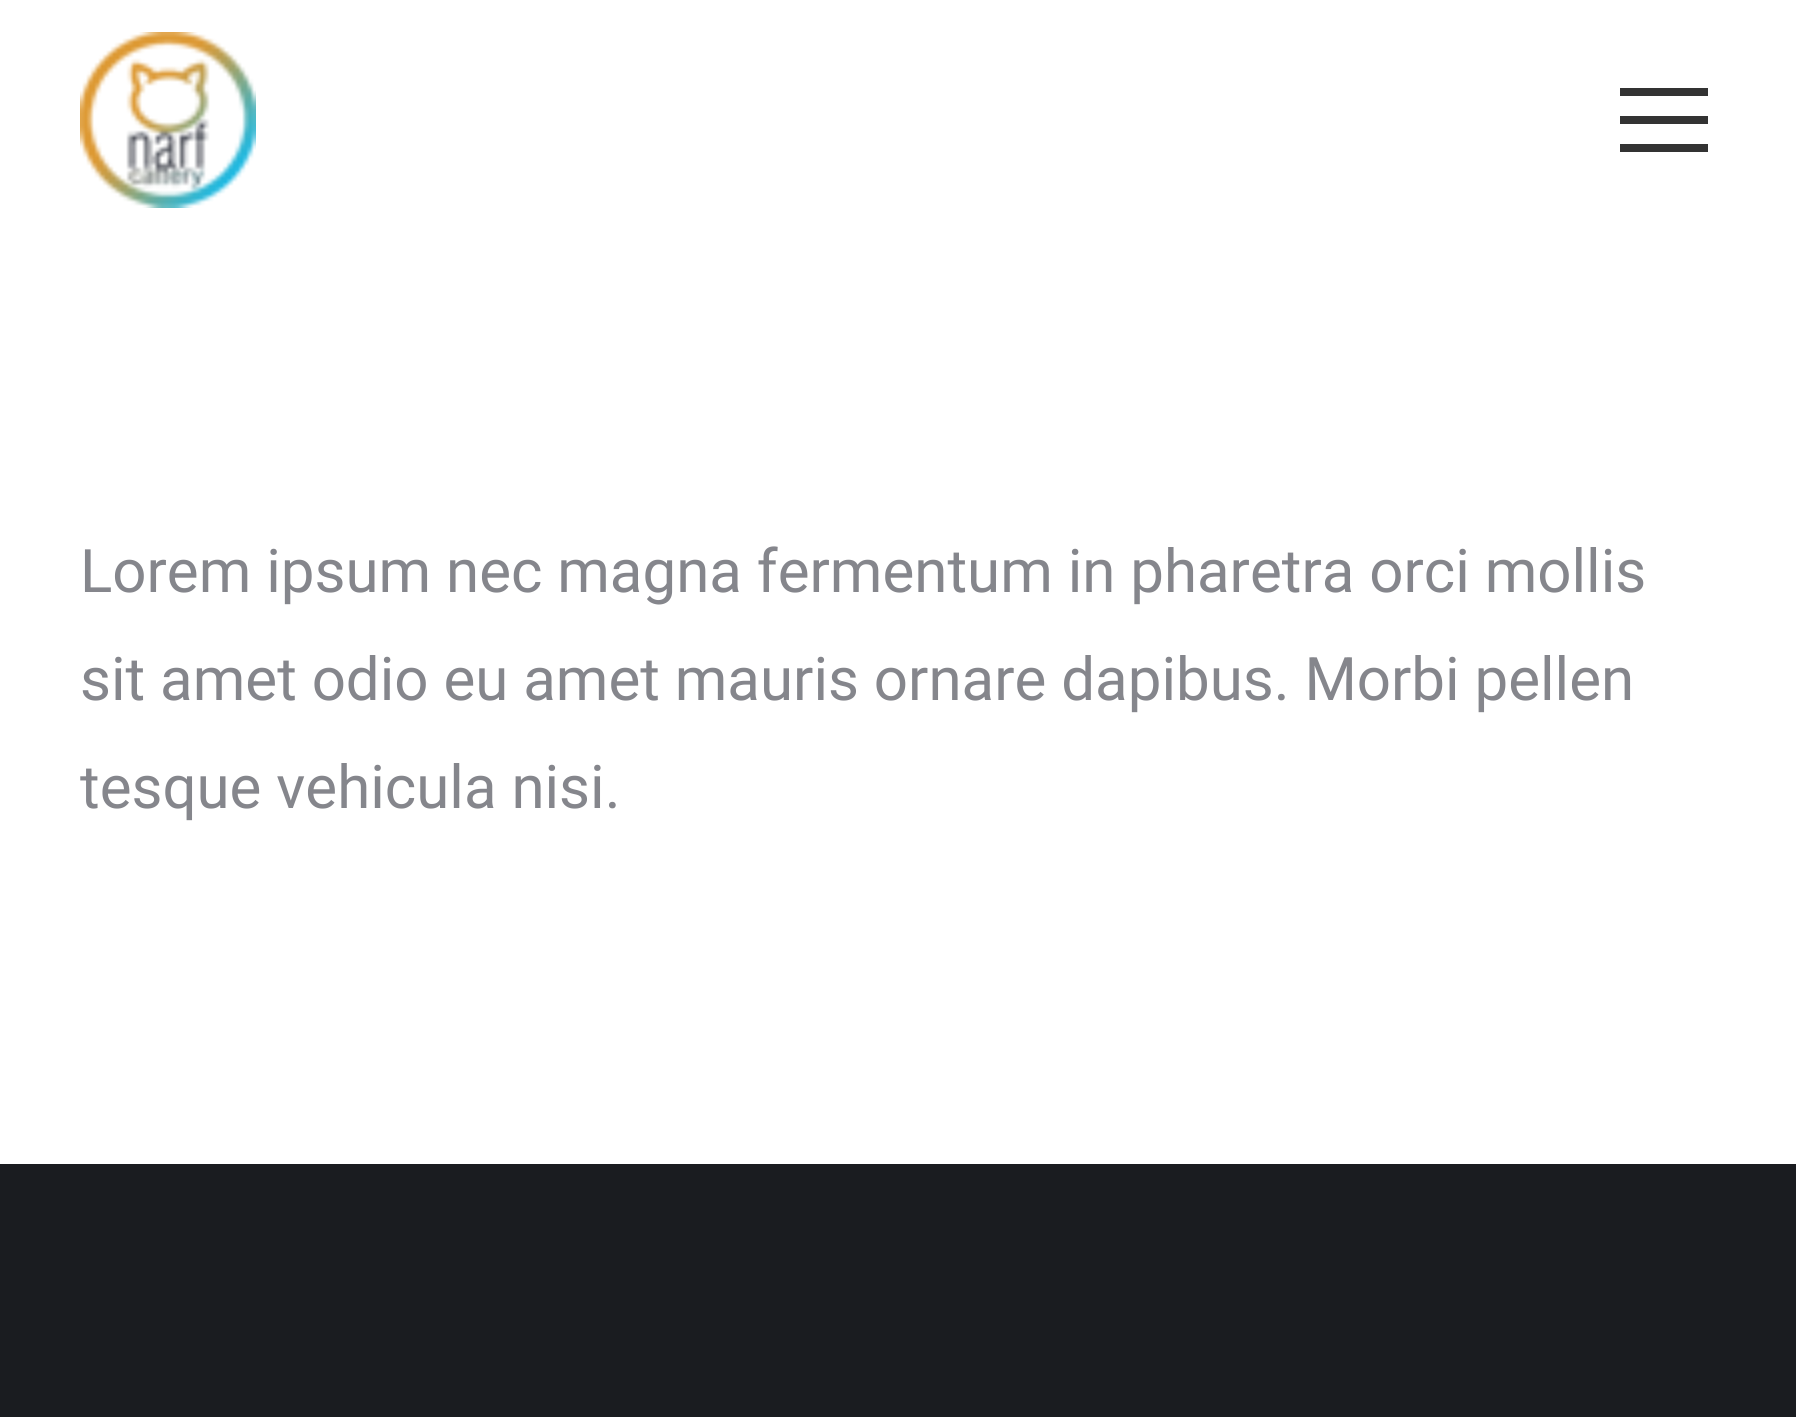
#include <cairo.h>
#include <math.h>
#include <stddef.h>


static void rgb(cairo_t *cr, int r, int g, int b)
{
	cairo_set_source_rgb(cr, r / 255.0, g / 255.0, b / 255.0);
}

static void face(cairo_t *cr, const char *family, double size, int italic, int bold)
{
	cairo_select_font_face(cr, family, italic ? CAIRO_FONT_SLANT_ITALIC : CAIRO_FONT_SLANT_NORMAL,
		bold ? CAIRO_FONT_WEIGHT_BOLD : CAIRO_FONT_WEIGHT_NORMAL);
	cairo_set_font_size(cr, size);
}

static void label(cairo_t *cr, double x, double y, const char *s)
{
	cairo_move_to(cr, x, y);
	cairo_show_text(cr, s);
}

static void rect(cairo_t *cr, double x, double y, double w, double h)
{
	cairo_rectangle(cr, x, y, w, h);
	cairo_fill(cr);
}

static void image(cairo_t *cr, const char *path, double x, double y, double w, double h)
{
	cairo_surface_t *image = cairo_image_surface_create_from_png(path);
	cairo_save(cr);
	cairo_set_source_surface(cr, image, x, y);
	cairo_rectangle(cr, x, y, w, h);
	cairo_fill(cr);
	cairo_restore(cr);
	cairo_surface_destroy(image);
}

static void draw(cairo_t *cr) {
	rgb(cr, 255, 255, 255);
	cairo_paint(cr);
	image(cr, "image0.png", 80, 32, 176, 176);
	rgb(cr, 51, 51, 51);
	rect(cr, 1620, 88, 88, 8);
	rect(cr, 1620, 116, 88, 8);
	rect(cr, 1620, 144, 88, 8);
	face(cr, "Roboto", 60, 0, 0);
	rgb(cr, 133, 134, 140);
	label(cr, 80, 592, "Lorem ipsum nec magna fermentum in pharetra orci mollis");
	label(cr, 80, 700, "sit amet odio eu amet mauris ornare dapibus. Morbi pellen");
	label(cr, 80, 808, "tesque vehicula nisi.");
	rgb(cr, 26, 28, 32);
	rect(cr, 0, 1164, 1796, 253);
}

int main(void) {
	cairo_surface_t *surface = cairo_image_surface_create(CAIRO_FORMAT_RGB24, 1796, 1417);
	cairo_t *cr = cairo_create(surface);
	cairo_font_options_t *options = cairo_font_options_create();
	cairo_font_options_set_hint_metrics(options, CAIRO_HINT_METRICS_OFF);
	cairo_font_options_set_hint_style(options, CAIRO_HINT_STYLE_NONE);
	cairo_set_font_options(cr, options);
	cairo_set_miter_limit(cr, 4);
	draw(cr);
	cairo_surface_write_to_png(surface, "render.png");
	cairo_font_options_destroy(options);
	cairo_destroy(cr);
	cairo_surface_destroy(surface);
	return 0;
}
